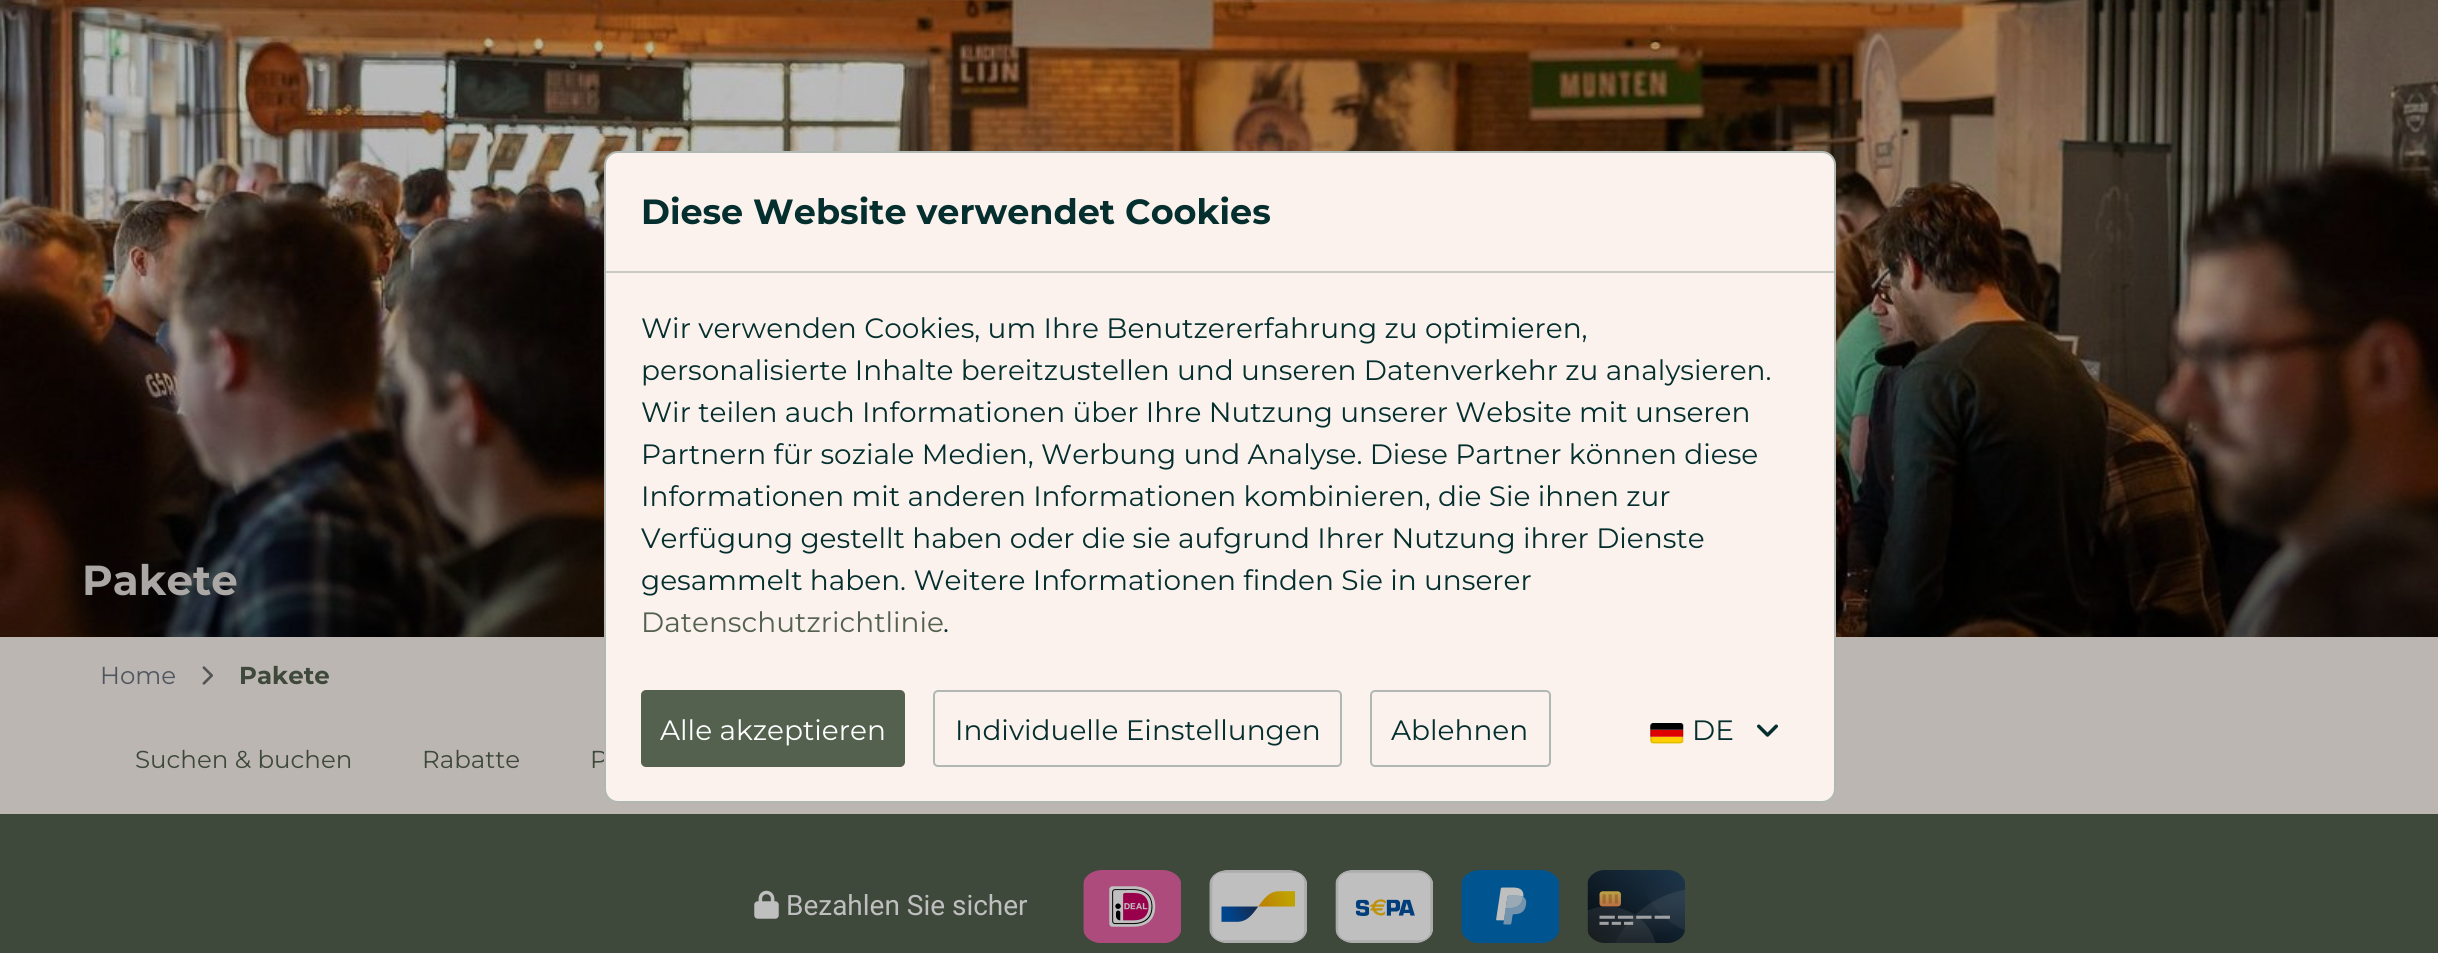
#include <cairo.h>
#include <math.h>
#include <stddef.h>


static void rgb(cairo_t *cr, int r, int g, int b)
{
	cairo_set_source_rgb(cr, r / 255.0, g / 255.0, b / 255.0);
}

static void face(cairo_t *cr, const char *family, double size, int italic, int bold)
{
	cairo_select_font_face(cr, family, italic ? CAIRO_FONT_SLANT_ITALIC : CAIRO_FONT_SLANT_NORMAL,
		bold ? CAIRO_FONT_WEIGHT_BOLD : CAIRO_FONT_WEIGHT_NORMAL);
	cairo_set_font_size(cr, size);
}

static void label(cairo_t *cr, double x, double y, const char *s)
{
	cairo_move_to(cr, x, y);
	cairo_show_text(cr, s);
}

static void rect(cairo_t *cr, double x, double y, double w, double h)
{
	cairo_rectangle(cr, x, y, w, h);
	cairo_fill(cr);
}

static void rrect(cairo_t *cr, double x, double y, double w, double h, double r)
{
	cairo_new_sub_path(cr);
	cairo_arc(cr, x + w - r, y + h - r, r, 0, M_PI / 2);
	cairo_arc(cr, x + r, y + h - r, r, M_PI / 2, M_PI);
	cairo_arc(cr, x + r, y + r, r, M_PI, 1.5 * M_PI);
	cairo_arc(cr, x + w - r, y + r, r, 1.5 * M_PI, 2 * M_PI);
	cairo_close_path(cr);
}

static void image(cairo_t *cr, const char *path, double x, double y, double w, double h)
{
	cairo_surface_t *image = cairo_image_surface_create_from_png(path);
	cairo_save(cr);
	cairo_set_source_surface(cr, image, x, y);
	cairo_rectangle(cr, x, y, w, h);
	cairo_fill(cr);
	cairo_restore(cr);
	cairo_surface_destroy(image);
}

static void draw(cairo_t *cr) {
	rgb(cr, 188, 182, 178);
	cairo_paint(cr);
	image(cr, "image0.png", 0, 0, 2438, 637);
	face(cr, "Montserrat", 42, 0, 1);
	rgb(cr, 170, 167, 164);
	label(cr, 82, 595, "Pakete");
	face(cr, "Montserrat", 24.5, 0, 0);
	rgb(cr, 80, 86, 96);
	label(cr, 100, 684, "Home");
	image(cr, "image1.png", 202, 666, 11, 19);
	face(cr, "Montserrat", 24.5, 0, 1);
	rgb(cr, 62, 73, 59);
	label(cr, 239, 684, "Pakete");
	face(cr, "Montserrat", 24.5, 0, 0);
	label(cr, 135, 768, "Suchen & buchen");
	label(cr, 422, 768, "Rabatte");
	label(cr, 590, 768, "P");
	rect(cr, 0, 814, 2438, 139);
	image(cr, "image2.png", 754, 890, 25, 29);
	face(cr, "Roboto", 28, 0, 0);
	rgb(cr, 191, 191, 191);
	label(cr, 786, 915, "Bezahlen Sie sicher");
	image(cr, "image3.png", 1083, 870, 98, 73);
	image(cr, "image4.png", 1209, 870, 98, 73);
	image(cr, "image5.png", 1335, 870, 98, 73);
	image(cr, "image6.png", 1461, 870, 98, 73);
	image(cr, "image7.png", 1587, 870, 98, 73);
	rgb(cr, 251, 242, 237);
	rrect(cr, 605, 152, 1230, 650, 13);
	cairo_fill_preserve(cr);
	rgb(cr, 177, 184, 180);
	cairo_stroke(cr);
	rgb(cr, 202, 203, 199);
	rect(cr, 606, 271, 1228, 2);
	face(cr, "Montserrat", 35, 0, 1);
	rgb(cr, 4, 47, 46);
	label(cr, 641, 224, "Diese Website verwendet Cookies");
	face(cr, "Montserrat", 28, 0, 0);
	label(cr, 641, 338, "Wir verwenden Cookies, um Ihre Benutzererfahrung zu optimieren,");
	label(cr, 641, 380, "personalisierte Inhalte bereitzustellen und unseren Datenverkehr zu analysieren.");
	label(cr, 641, 422, "Wir teilen auch Informationen über Ihre Nutzung unserer Website mit unseren");
	label(cr, 641, 464, "Partnern für soziale Medien, Werbung und Analyse. Diese Partner können diese");
	label(cr, 641, 506, "Informationen mit anderen Informationen kombinieren, die Sie ihnen zur");
	label(cr, 641, 548, "Verfügung gestellt haben oder die sie aufgrund Ihrer Nutzung ihrer Dienste");
	label(cr, 641, 590, "gesammelt haben. Weitere Informationen finden Sie in unserer");
	rgb(cr, 83, 97, 78);
	label(cr, 641, 632, "Datenschutzrichtlinie");
	rgb(cr, 4, 47, 46);
	label(cr, 943, 632, ".");
	rgb(cr, 83, 97, 78);
	rrect(cr, 641, 690, 264, 77, 5);
	cairo_fill(cr);
	rgb(cr, 255, 255, 255);
	label(cr, 660, 740, "Alle akzeptieren");
	rrect(cr, 934, 691, 407, 75, 4);
	rgb(cr, 177, 184, 180);
	cairo_stroke(cr);
	rgb(cr, 4, 47, 46);
	label(cr, 955, 740, "Individuelle Einstellungen");
	rrect(cr, 1371, 691, 179, 75, 4);
	rgb(cr, 177, 184, 180);
	cairo_stroke(cr);
	rgb(cr, 4, 47, 46);
	label(cr, 1391, 740, "Ablehnen");
	image(cr, "image8.png", 1650, 723, 34, 21);
	label(cr, 1692, 740, "DE");
	image(cr, "image9.png", 1757, 724, 21, 13);
}

int main(void) {
	cairo_surface_t *surface = cairo_image_surface_create(CAIRO_FORMAT_RGB24, 2438, 953);
	cairo_t *cr = cairo_create(surface);
	cairo_font_options_t *options = cairo_font_options_create();
	cairo_font_options_set_hint_metrics(options, CAIRO_HINT_METRICS_OFF);
	cairo_font_options_set_hint_style(options, CAIRO_HINT_STYLE_NONE);
	cairo_set_font_options(cr, options);
	cairo_set_miter_limit(cr, 4);
	draw(cr);
	cairo_surface_write_to_png(surface, "render.png");
	cairo_font_options_destroy(options);
	cairo_destroy(cr);
	cairo_surface_destroy(surface);
	return 0;
}
